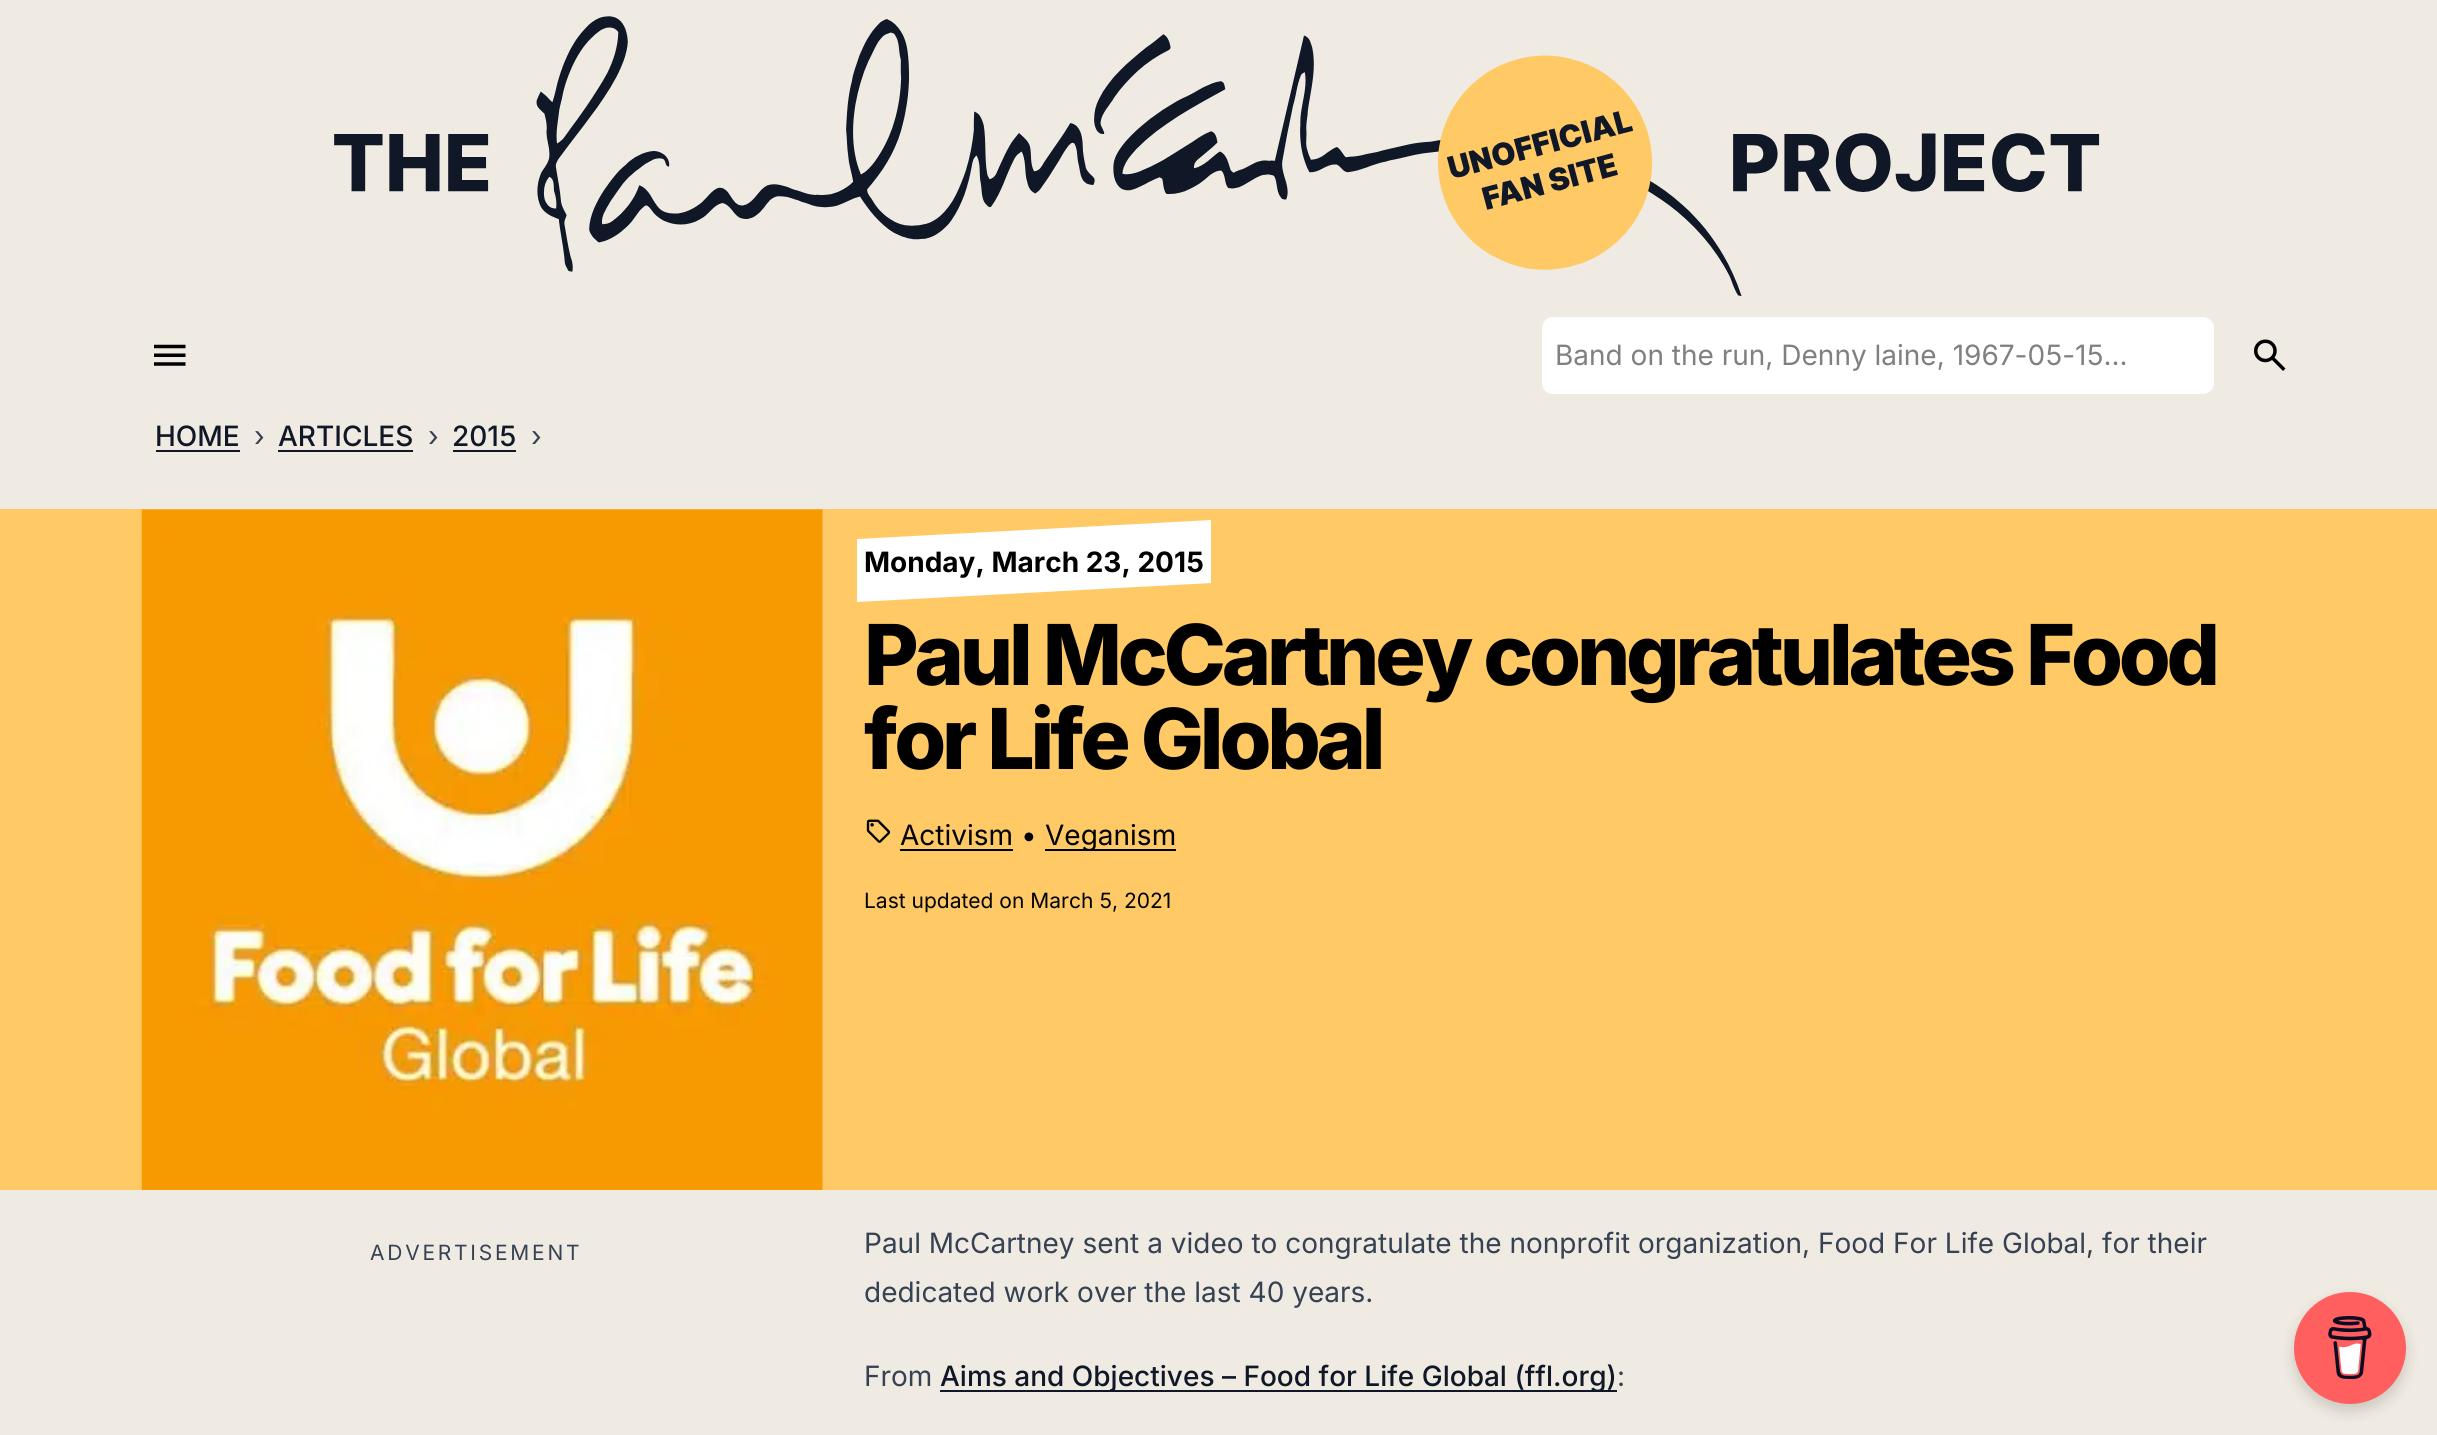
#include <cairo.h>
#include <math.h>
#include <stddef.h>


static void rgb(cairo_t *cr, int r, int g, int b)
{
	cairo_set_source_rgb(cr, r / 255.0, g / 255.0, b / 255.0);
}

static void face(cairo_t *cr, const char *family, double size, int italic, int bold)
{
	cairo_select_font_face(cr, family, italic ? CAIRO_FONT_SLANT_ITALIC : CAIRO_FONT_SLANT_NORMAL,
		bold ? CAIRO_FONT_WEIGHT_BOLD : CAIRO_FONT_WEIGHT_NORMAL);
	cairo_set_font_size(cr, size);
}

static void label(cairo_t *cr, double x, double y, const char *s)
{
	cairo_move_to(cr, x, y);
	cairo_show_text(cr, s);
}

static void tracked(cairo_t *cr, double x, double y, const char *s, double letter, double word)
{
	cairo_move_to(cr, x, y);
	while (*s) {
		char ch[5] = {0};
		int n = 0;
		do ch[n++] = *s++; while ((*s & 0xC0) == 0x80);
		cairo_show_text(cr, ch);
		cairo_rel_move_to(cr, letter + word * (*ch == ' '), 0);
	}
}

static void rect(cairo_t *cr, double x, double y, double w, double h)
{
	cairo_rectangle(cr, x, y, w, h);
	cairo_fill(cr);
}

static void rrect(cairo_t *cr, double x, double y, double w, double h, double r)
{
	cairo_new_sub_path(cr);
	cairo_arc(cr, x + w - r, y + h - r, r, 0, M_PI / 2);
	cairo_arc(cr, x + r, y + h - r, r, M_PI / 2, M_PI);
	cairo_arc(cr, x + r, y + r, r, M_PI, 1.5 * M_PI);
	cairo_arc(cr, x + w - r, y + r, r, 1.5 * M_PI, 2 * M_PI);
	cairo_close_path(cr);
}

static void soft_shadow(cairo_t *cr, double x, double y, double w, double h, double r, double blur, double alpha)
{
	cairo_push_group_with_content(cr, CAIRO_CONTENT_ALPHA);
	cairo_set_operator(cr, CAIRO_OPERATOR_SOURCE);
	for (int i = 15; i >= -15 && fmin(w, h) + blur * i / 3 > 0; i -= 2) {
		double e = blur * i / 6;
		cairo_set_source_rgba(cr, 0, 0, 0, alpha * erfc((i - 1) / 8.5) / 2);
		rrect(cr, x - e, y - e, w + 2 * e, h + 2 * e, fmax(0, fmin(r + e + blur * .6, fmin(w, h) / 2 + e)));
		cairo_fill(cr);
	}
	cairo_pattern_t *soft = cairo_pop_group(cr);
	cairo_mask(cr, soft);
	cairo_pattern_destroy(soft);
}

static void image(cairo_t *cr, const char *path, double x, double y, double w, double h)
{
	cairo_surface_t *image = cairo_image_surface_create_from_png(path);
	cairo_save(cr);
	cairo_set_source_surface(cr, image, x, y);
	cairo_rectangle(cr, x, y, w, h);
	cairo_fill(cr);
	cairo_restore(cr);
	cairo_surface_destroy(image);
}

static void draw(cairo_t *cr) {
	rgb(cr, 239, 235, 226);
	cairo_paint(cr);
	image(cr, "image0.png", 334, 16, 1766, 280);
	image(cr, "image1.png", 154, 344, 32, 22);
	rgb(cr, 255, 255, 255);
	rrect(cr, 1542, 317, 672, 77, 11);
	cairo_fill(cr);
	face(cr, "Inter", 28, 0, 0);
	rgb(cr, 128, 128, 128);
	label(cr, 1555, 365, "Band on the run, Denny laine, 1967-05-15...");
	image(cr, "image2.png", 2254, 339, 32, 32);
	face(cr, "Inter Medium", 28, 0, 0);
	rgb(cr, 16, 24, 40);
	label(cr, 155, 446, "HOME");
	rect(cr, 156, 450, 84, 2);
	face(cr, "Inter", 28, 0, 0);
	rgb(cr, 54, 65, 83);
	label(cr, 254, 446, "›");
	face(cr, "Inter Medium", 28, 0, 0);
	rgb(cr, 16, 24, 40);
	label(cr, 278, 446, "ARTICLES");
	rect(cr, 278, 450, 135, 2);
	face(cr, "Inter", 28, 0, 0);
	rgb(cr, 54, 65, 83);
	label(cr, 428, 446, "›");
	face(cr, "Inter Medium", 28, 0, 0);
	rgb(cr, 16, 24, 40);
	label(cr, 452, 446, "2015");
	rect(cr, 453, 450, 63, 2);
	face(cr, "Inter", 28, 0, 0);
	rgb(cr, 54, 65, 83);
	label(cr, 531, 446, "›");
	rgb(cr, 255, 202, 102);
	rect(cr, 0, 509, 2437, 681);
	image(cr, "image3.png", 141, 509, 682, 681);
	rgb(cr, 255, 255, 255);
	cairo_new_path(cr);
	cairo_move_to(cr, 857, 539);
	cairo_line_to(cr, 1211, 520);
	cairo_line_to(cr, 1211, 583);
	cairo_line_to(cr, 857, 602);
	cairo_close_path(cr);
	cairo_fill(cr);
	face(cr, "Inter", 28, 0, 1);
	rgb(cr, 0, 0, 0);
	label(cr, 864, 572, "Monday, March 23, 2015");
	face(cr, "Inter ExtraBold", 84, 0, 0);
	tracked(cr, 864, 685, "Paul McCartney congratulates Food", -4.2, 0);
	tracked(cr, 864, 769, "for Life Global", -4.2, 0);
	image(cr, "image4.png", 866, 819, 25, 24);
	face(cr, "Inter", 28, 0, 0);
	label(cr, 900, 845, "Activism •");
	rect(cr, 900, 849, 113, 2);
	rect(cr, 1045, 849, 131, 2);
	label(cr, 1045, 845, "Veganism");
	face(cr, "Inter", 21, 0, 0);
	label(cr, 864, 908, "Last updated on March 5, 2021");
	rgb(cr, 54, 65, 83);
	tracked(cr, 370, 1260, "ADVERTISEMENT", 2.75, 0);
	face(cr, "Inter", 28, 0, 0);
	label(cr, 864, 1253, "Paul McCartney sent a video to congratulate the nonprofit organization, Food For Life Global, for their");
	label(cr, 864, 1302, "dedicated work over the last 40 years.");
	label(cr, 864, 1386, "From");
	rgb(cr, 16, 24, 40);
	rect(cr, 940, 1390, 677, 2);
	face(cr, "Inter Medium", 28, 0, 0);
	label(cr, 940, 1386, "Aims and Objectives – Food for Life Global (ffl.org)");
	face(cr, "Inter", 28, 0, 0);
	rgb(cr, 54, 65, 83);
	label(cr, 1617, 1386, ":");
	rgb(cr, 0, 0, 0);
	soft_shadow(cr, 2294, 1299, 112, 112, 56, 7, 0.15);
	rgb(cr, 255, 95, 95);
	cairo_arc(cr, 2350, 1348, 56, 0, 2 * M_PI);
	cairo_fill(cr);
	image(cr, "image5.png", 2328, 1316, 44, 63);
}

int main(void) {
	cairo_surface_t *surface = cairo_image_surface_create(CAIRO_FORMAT_RGB24, 2437, 1435);
	cairo_t *cr = cairo_create(surface);
	cairo_font_options_t *options = cairo_font_options_create();
	cairo_font_options_set_hint_metrics(options, CAIRO_HINT_METRICS_OFF);
	cairo_font_options_set_hint_style(options, CAIRO_HINT_STYLE_NONE);
	cairo_set_font_options(cr, options);
	cairo_set_miter_limit(cr, 4);
	draw(cr);
	cairo_surface_write_to_png(surface, "render.png");
	cairo_font_options_destroy(options);
	cairo_destroy(cr);
	cairo_surface_destroy(surface);
	return 0;
}
